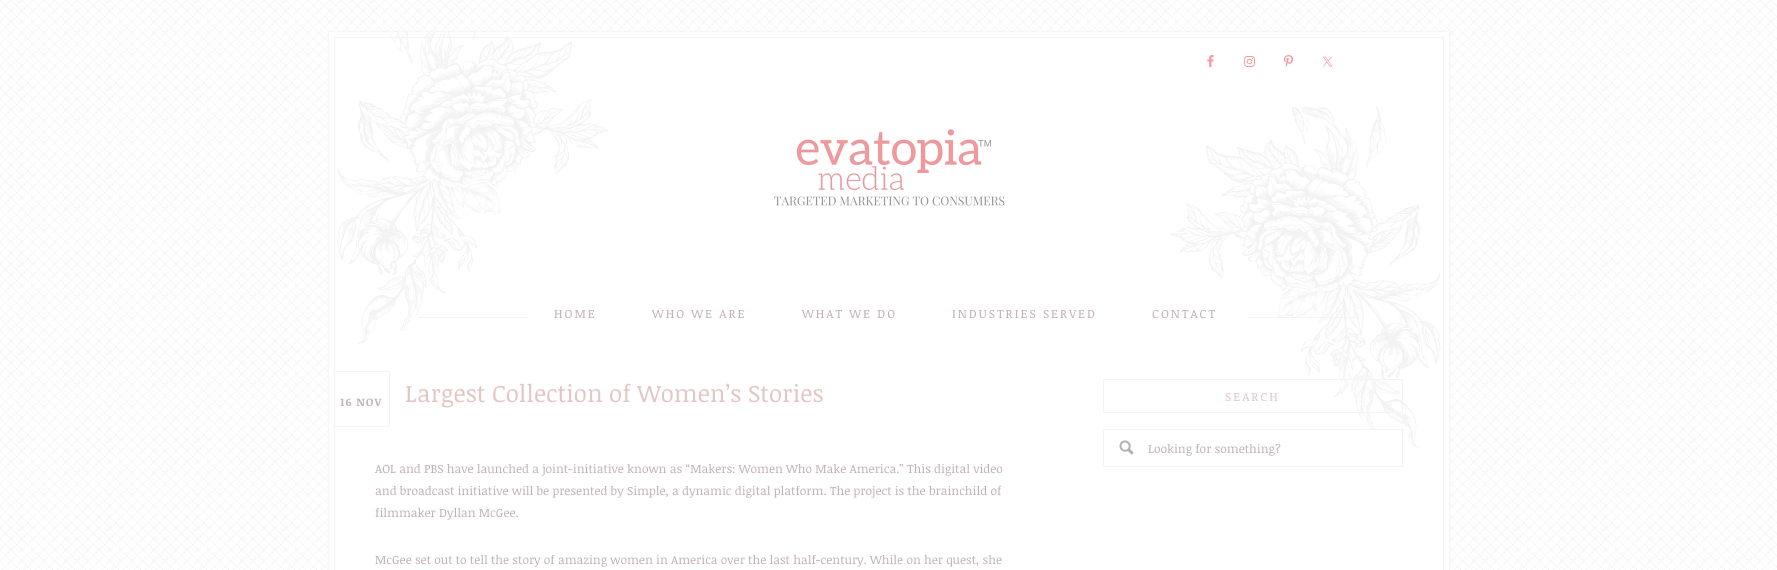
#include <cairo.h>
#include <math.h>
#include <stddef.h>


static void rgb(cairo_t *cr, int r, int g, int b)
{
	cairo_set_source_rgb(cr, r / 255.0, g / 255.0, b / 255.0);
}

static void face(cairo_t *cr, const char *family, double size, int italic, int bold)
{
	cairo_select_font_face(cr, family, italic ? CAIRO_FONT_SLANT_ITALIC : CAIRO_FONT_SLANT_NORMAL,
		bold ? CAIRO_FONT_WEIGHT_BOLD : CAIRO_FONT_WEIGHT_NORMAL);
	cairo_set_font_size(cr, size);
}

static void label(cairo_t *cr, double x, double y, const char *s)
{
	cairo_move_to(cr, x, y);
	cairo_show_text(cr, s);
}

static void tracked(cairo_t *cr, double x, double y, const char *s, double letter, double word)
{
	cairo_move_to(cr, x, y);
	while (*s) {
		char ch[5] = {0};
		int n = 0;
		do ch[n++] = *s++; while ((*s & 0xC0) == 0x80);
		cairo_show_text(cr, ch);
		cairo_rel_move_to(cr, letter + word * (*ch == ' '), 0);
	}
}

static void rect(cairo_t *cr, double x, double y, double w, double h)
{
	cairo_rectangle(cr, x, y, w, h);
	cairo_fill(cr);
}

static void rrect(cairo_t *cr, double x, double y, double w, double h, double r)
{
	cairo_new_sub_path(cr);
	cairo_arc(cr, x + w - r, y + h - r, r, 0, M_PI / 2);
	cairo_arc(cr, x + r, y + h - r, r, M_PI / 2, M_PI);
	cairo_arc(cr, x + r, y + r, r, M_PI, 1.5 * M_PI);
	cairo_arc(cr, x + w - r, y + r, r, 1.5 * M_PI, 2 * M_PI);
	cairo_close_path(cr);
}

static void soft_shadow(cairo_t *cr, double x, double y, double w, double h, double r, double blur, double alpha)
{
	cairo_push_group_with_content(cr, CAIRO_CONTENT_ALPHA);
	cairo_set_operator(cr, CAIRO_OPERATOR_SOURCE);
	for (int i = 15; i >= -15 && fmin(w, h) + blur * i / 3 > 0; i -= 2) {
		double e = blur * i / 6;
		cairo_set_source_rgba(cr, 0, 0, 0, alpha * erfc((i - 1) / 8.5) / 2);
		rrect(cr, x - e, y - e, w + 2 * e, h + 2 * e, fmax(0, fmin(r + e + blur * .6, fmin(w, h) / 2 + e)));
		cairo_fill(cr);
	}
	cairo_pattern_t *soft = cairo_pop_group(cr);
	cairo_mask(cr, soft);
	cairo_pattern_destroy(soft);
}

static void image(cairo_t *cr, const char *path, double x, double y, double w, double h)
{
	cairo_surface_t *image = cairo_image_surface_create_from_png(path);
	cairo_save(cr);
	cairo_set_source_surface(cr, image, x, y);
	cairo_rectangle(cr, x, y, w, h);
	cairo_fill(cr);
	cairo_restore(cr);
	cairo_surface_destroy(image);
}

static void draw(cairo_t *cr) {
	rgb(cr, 255, 255, 255);
	cairo_paint(cr);
	image(cr, "image0.png", 0, 0, 1777, 570);
	rgb(cr, 238, 238, 238);
	soft_shadow(cr, 329, 32, 1120, 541, 0, 1, 1);
	rgb(cr, 255, 255, 255);
	rect(cr, 329, 32, 1120, 538);
	image(cr, "image1.png", 337, 32, 1104, 416);
	cairo_rectangle(cr, 334.5, 37.5, 1109, 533);
	rgb(cr, 246, 243, 243);
	cairo_set_line_width(cr, 1);
	cairo_stroke(cr);
	image(cr, "image2.png", 1207, 55, 7, 12);
	image(cr, "image3.png", 1244, 56, 11, 11);
	image(cr, "image4.png", 1283, 55, 11, 12);
	image(cr, "image5.png", 1323, 56, 10, 11);
	image(cr, "image6.png", 774, 129, 231, 77);
	rect(cr, 418, 317, 111, 1);
	face(cr, "Noticia Text", 12, 0, 0);
	rgb(cr, 194, 176, 176);
	tracked(cr, 554, 318, "HOME", 2, 0);
	tracked(cr, 652, 318, "WHO WE ARE", 2, 0);
	tracked(cr, 802, 318, "WHAT WE DO", 2, 0);
	tracked(cr, 952, 318, "INDUSTRIES SERVED", 2, 0);
	tracked(cr, 1152, 318, "CONTACT", 2, 0);
	rgb(cr, 246, 243, 243);
	rect(cr, 1248, 317, 111, 1);
	cairo_rectangle(cr, 334.5, 371.5, 55, 55);
	cairo_stroke(cr);
	face(cr, "Noticia Text", 11, 0, 1);
	rgb(cr, 194, 176, 176);
	tracked(cr, 340, 406, "16 NOV", 1, 0);
	face(cr, "Noticia Text", 24, 0, 0);
	rgb(cr, 226, 198, 195);
	label(cr, 405, 402, "Largest Collection of Women’s Stories");
	face(cr, "Noticia Text", 12, 0, 0);
	rgb(cr, 194, 176, 176);
	label(cr, 375, 473, "AOL and PBS have launched a joint-initiative known as “Makers: Women Who Make America.” This digital video");
	label(cr, 375, 495, "and broadcast initiative will be presented by Simple, a dynamic digital platform. The project is the brainchild of");
	label(cr, 375, 517, "filmmaker Dyllan McGee.");
	label(cr, 375, 564, "McGee set out to tell the story of amazing women in America over the last half-century. While on her quest, she");
	cairo_rectangle(cr, 1103.5, 379.5, 299, 33);
	rgb(cr, 246, 243, 243);
	cairo_stroke(cr);
	rgb(cr, 226, 198, 195);
	tracked(cr, 1225, 401, "SEARCH", 2, 0);
	rgb(cr, 255, 255, 255);
	rect(cr, 1373, 430, 5, 5);
	image(cr, "image7.png", 1119, 440, 15, 15);
	cairo_rectangle(cr, 1103.5, 429.5, 299, 37);
	rgb(cr, 246, 243, 243);
	cairo_stroke(cr);
	rgb(cr, 194, 176, 176);
	label(cr, 1148, 453, "Looking for something?");
}

int main(void) {
	cairo_surface_t *surface = cairo_image_surface_create(CAIRO_FORMAT_RGB24, 1777, 570);
	cairo_t *cr = cairo_create(surface);
	cairo_font_options_t *options = cairo_font_options_create();
	cairo_font_options_set_hint_metrics(options, CAIRO_HINT_METRICS_OFF);
	cairo_font_options_set_hint_style(options, CAIRO_HINT_STYLE_NONE);
	cairo_set_font_options(cr, options);
	cairo_set_miter_limit(cr, 4);
	draw(cr);
	cairo_surface_write_to_png(surface, "render.png");
	cairo_font_options_destroy(options);
	cairo_destroy(cr);
	cairo_surface_destroy(surface);
	return 0;
}
